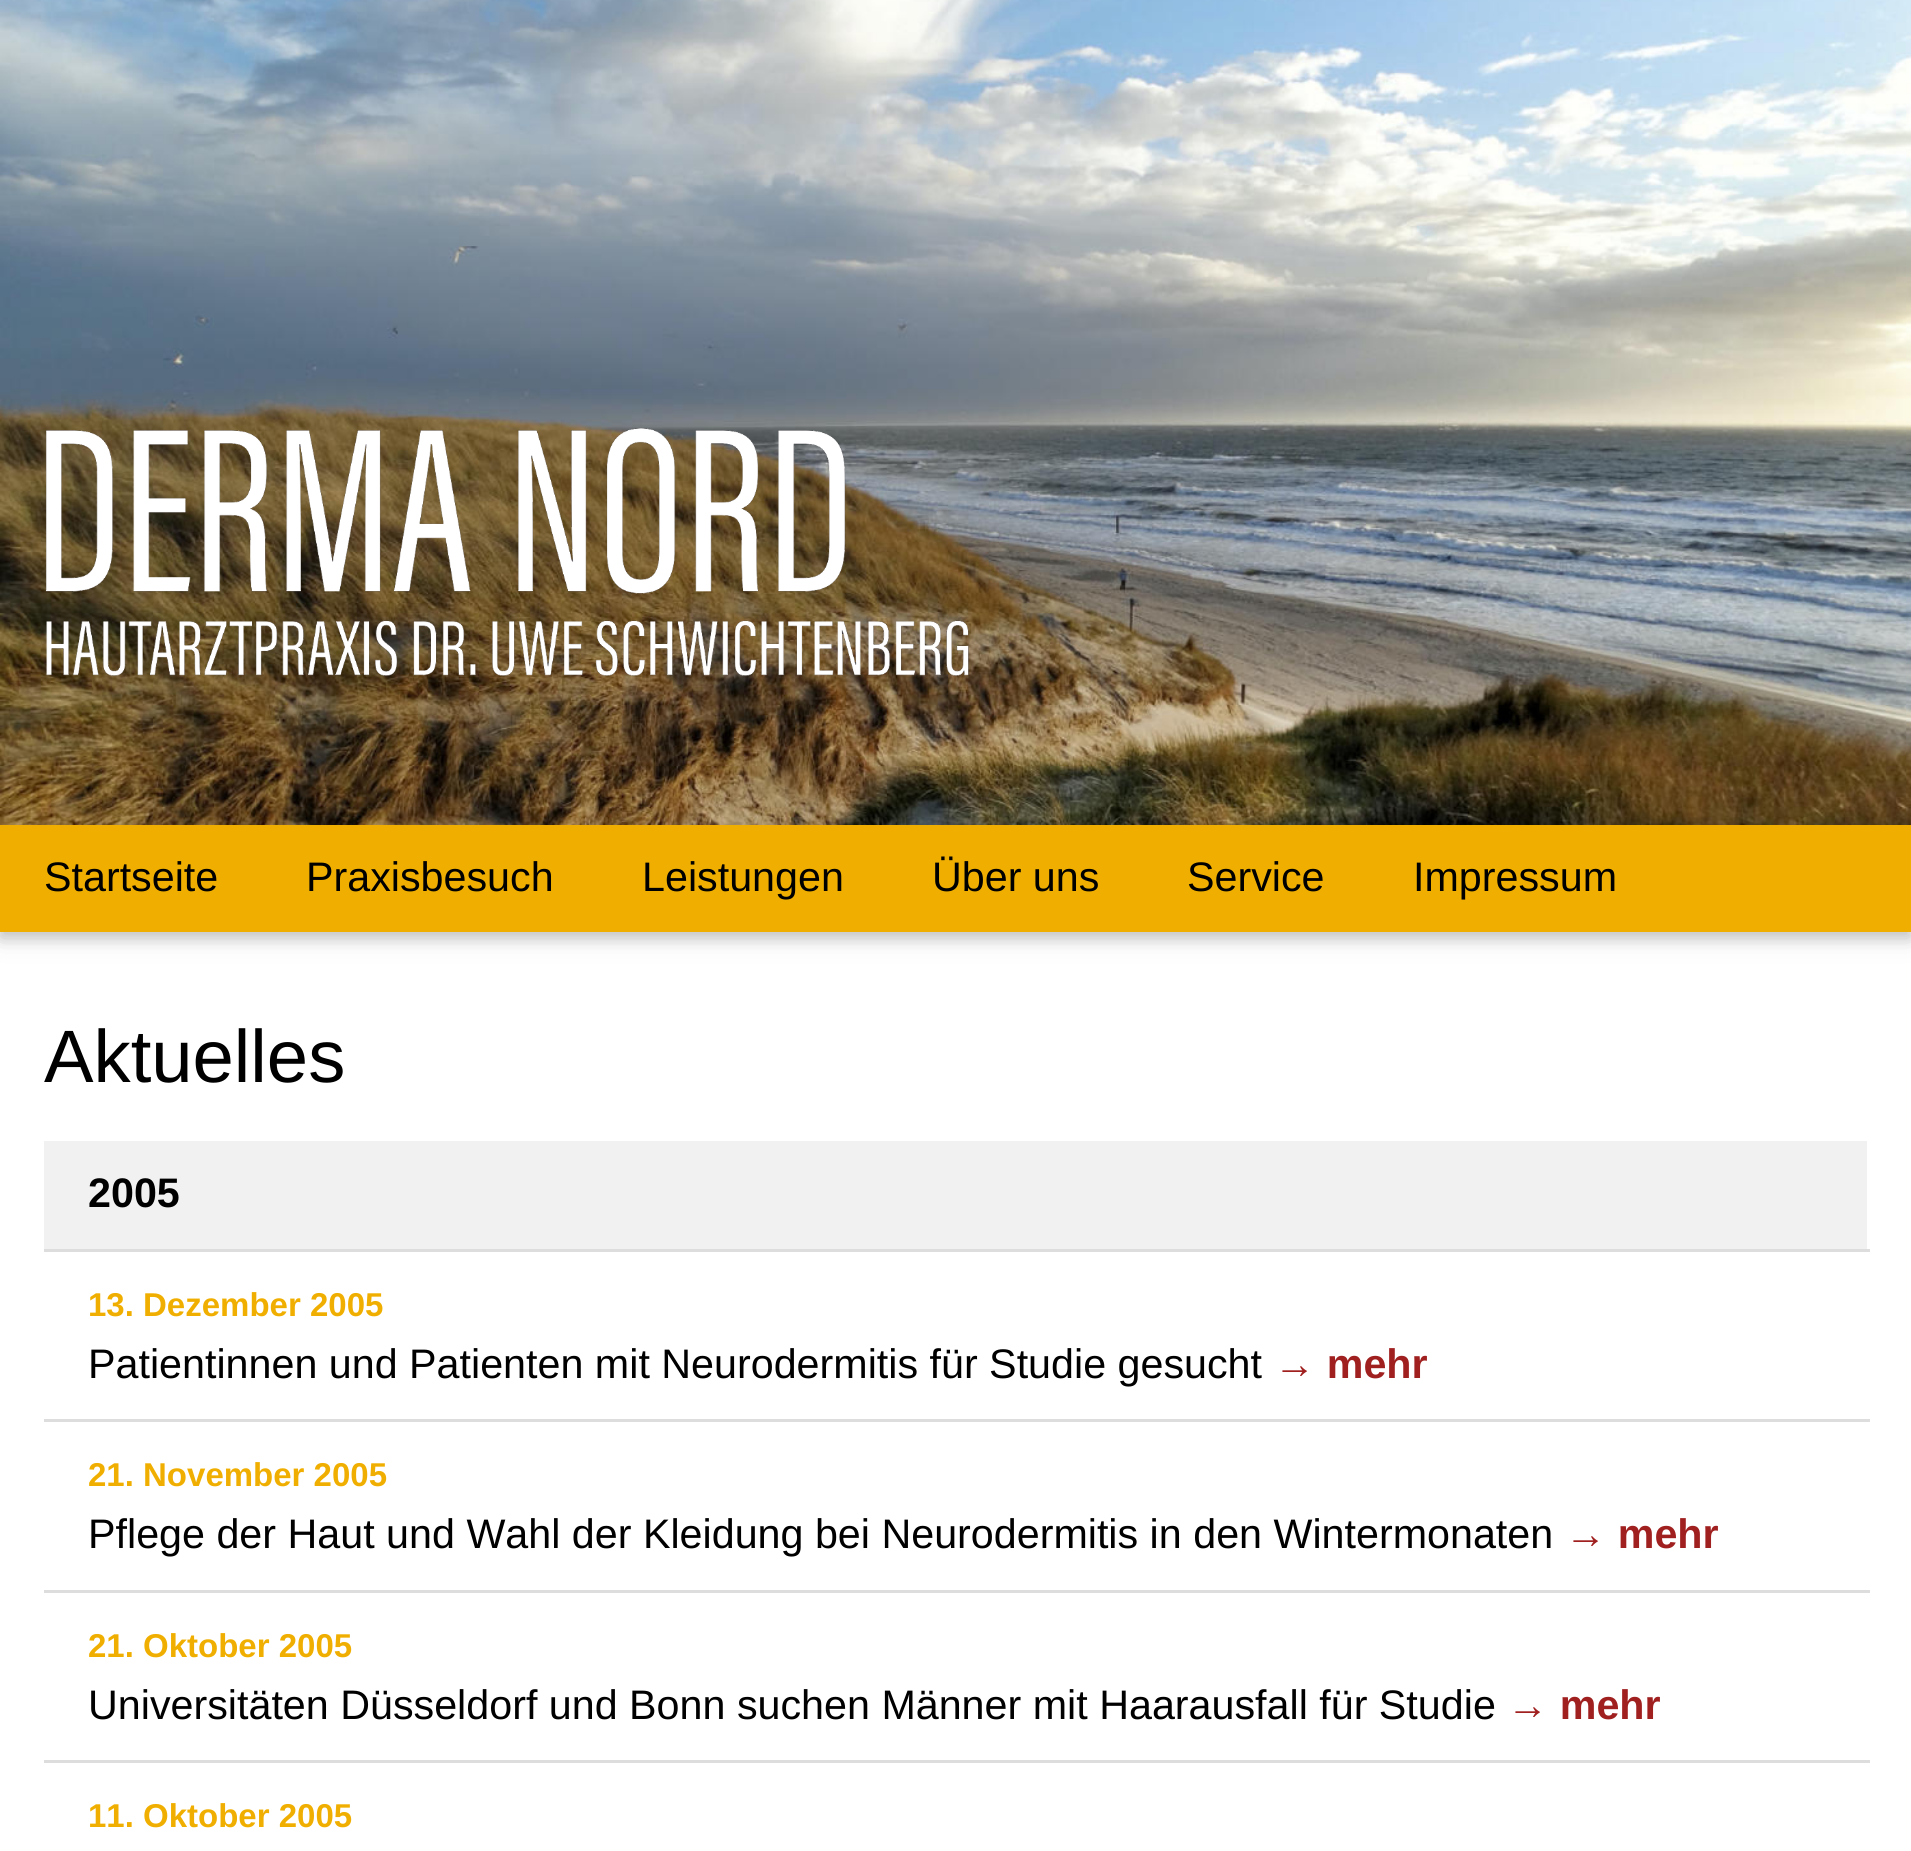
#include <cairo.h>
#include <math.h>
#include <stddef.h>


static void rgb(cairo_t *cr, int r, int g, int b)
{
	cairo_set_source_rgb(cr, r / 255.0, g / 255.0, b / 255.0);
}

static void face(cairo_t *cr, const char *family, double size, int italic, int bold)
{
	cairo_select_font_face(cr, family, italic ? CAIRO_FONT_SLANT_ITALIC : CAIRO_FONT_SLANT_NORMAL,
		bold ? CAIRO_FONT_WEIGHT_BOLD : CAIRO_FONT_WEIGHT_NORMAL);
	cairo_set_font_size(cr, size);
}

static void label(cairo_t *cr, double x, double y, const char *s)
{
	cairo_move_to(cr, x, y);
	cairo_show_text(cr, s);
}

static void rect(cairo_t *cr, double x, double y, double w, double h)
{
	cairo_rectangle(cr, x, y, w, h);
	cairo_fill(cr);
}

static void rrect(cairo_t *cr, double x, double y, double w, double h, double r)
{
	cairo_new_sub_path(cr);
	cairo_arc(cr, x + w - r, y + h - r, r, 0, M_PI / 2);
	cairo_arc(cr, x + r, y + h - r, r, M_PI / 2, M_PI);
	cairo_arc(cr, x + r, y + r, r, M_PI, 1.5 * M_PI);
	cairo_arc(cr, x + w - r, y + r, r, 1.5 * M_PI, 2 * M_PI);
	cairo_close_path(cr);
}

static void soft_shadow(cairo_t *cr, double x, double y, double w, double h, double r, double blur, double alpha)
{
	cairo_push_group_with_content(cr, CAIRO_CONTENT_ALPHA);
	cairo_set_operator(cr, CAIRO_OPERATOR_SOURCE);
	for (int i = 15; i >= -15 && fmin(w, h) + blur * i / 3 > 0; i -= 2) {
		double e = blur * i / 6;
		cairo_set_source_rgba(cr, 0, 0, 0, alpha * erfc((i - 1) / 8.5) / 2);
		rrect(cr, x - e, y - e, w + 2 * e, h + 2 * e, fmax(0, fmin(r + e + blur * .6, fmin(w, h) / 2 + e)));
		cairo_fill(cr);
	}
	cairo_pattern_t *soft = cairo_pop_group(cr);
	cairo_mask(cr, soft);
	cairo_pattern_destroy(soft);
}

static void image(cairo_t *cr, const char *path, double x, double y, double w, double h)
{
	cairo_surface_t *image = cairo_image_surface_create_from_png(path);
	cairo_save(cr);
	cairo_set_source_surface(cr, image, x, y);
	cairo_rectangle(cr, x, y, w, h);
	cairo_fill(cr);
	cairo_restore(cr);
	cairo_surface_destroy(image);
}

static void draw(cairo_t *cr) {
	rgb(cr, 255, 255, 255);
	cairo_paint(cr);
	rgb(cr, 0, 0, 0);
	soft_shadow(cr, 0, 831, 1911, 107, 0, 14, 0.12);
	soft_shadow(cr, 0, 831, 1911, 107, 0, 7, 0.16);
	image(cr, "image0.png", 0, 0, 1911, 825);
	image(cr, "image1.png", 46, 428, 923, 248);
	rgb(cr, 240, 175, 0);
	rect(cr, 0, 825, 1911, 107);
	face(cr, "Liberation Sans", 41.25, 0, 0);
	rgb(cr, 0, 0, 0);
	label(cr, 44, 891, "Startseite");
	label(cr, 306, 891, "Praxisbesuch");
	label(cr, 642, 891, "Leistungen");
	label(cr, 932, 891, "Über uns");
	label(cr, 1187, 891, "Service");
	label(cr, 1413, 891, "Impressum");
	face(cr, "Liberation Sans", 74.25, 0, 0);
	label(cr, 44, 1082, "Aktuelles");
	rgb(cr, 241, 241, 241);
	rect(cr, 44, 1141, 1823, 108);
	rgb(cr, 221, 221, 221);
	rect(cr, 44, 1249, 1826, 3);
	face(cr, "Liberation Sans", 41.25, 0, 1);
	rgb(cr, 0, 0, 0);
	label(cr, 88, 1207, "2005");
	rgb(cr, 221, 221, 221);
	rect(cr, 44, 1419, 1826, 3);
	face(cr, "Liberation Sans", 33, 0, 1);
	rgb(cr, 240, 175, 0);
	label(cr, 88, 1316, "13. Dezember 2005");
	face(cr, "Liberation Sans", 41.25, 0, 0);
	rgb(cr, 0, 0, 0);
	label(cr, 88, 1378, "Patientinnen und Patienten mit Neurodermitis für Studie gesucht");
	face(cr, "Liberation Sans", 41.25, 0, 1);
	rgb(cr, 160, 32, 32);
	label(cr, 1274, 1378, "→ mehr");
	rgb(cr, 221, 221, 221);
	rect(cr, 44, 1590, 1826, 3);
	face(cr, "Liberation Sans", 33, 0, 1);
	rgb(cr, 240, 175, 0);
	label(cr, 88, 1486, "21. November 2005");
	face(cr, "Liberation Sans", 41.25, 0, 0);
	rgb(cr, 0, 0, 0);
	label(cr, 88, 1548, "Pflege der Haut und Wahl der Kleidung bei Neurodermitis in den Wintermonaten");
	face(cr, "Liberation Sans", 41.25, 0, 1);
	rgb(cr, 160, 32, 32);
	label(cr, 1565, 1548, "→ mehr");
	rgb(cr, 221, 221, 221);
	rect(cr, 44, 1760, 1826, 3);
	face(cr, "Liberation Sans", 33, 0, 1);
	rgb(cr, 240, 175, 0);
	label(cr, 88, 1657, "21. Oktober 2005");
	face(cr, "Liberation Sans", 41.25, 0, 0);
	rgb(cr, 0, 0, 0);
	label(cr, 88, 1719, "Universitäten Düsseldorf und Bonn suchen Männer mit Haarausfall für Studie");
	face(cr, "Liberation Sans", 41.25, 0, 1);
	rgb(cr, 160, 32, 32);
	label(cr, 1507, 1719, "→ mehr");
	face(cr, "Liberation Sans", 33, 0, 1);
	rgb(cr, 240, 175, 0);
	label(cr, 88, 1827, "11. Oktober 2005");
}

int main(void) {
	cairo_surface_t *surface = cairo_image_surface_create(CAIRO_FORMAT_RGB24, 1911, 1851);
	cairo_t *cr = cairo_create(surface);
	cairo_font_options_t *options = cairo_font_options_create();
	cairo_font_options_set_hint_metrics(options, CAIRO_HINT_METRICS_OFF);
	cairo_font_options_set_hint_style(options, CAIRO_HINT_STYLE_NONE);
	cairo_set_font_options(cr, options);
	cairo_set_miter_limit(cr, 4);
	draw(cr);
	cairo_surface_write_to_png(surface, "render.png");
	cairo_font_options_destroy(options);
	cairo_destroy(cr);
	cairo_surface_destroy(surface);
	return 0;
}
